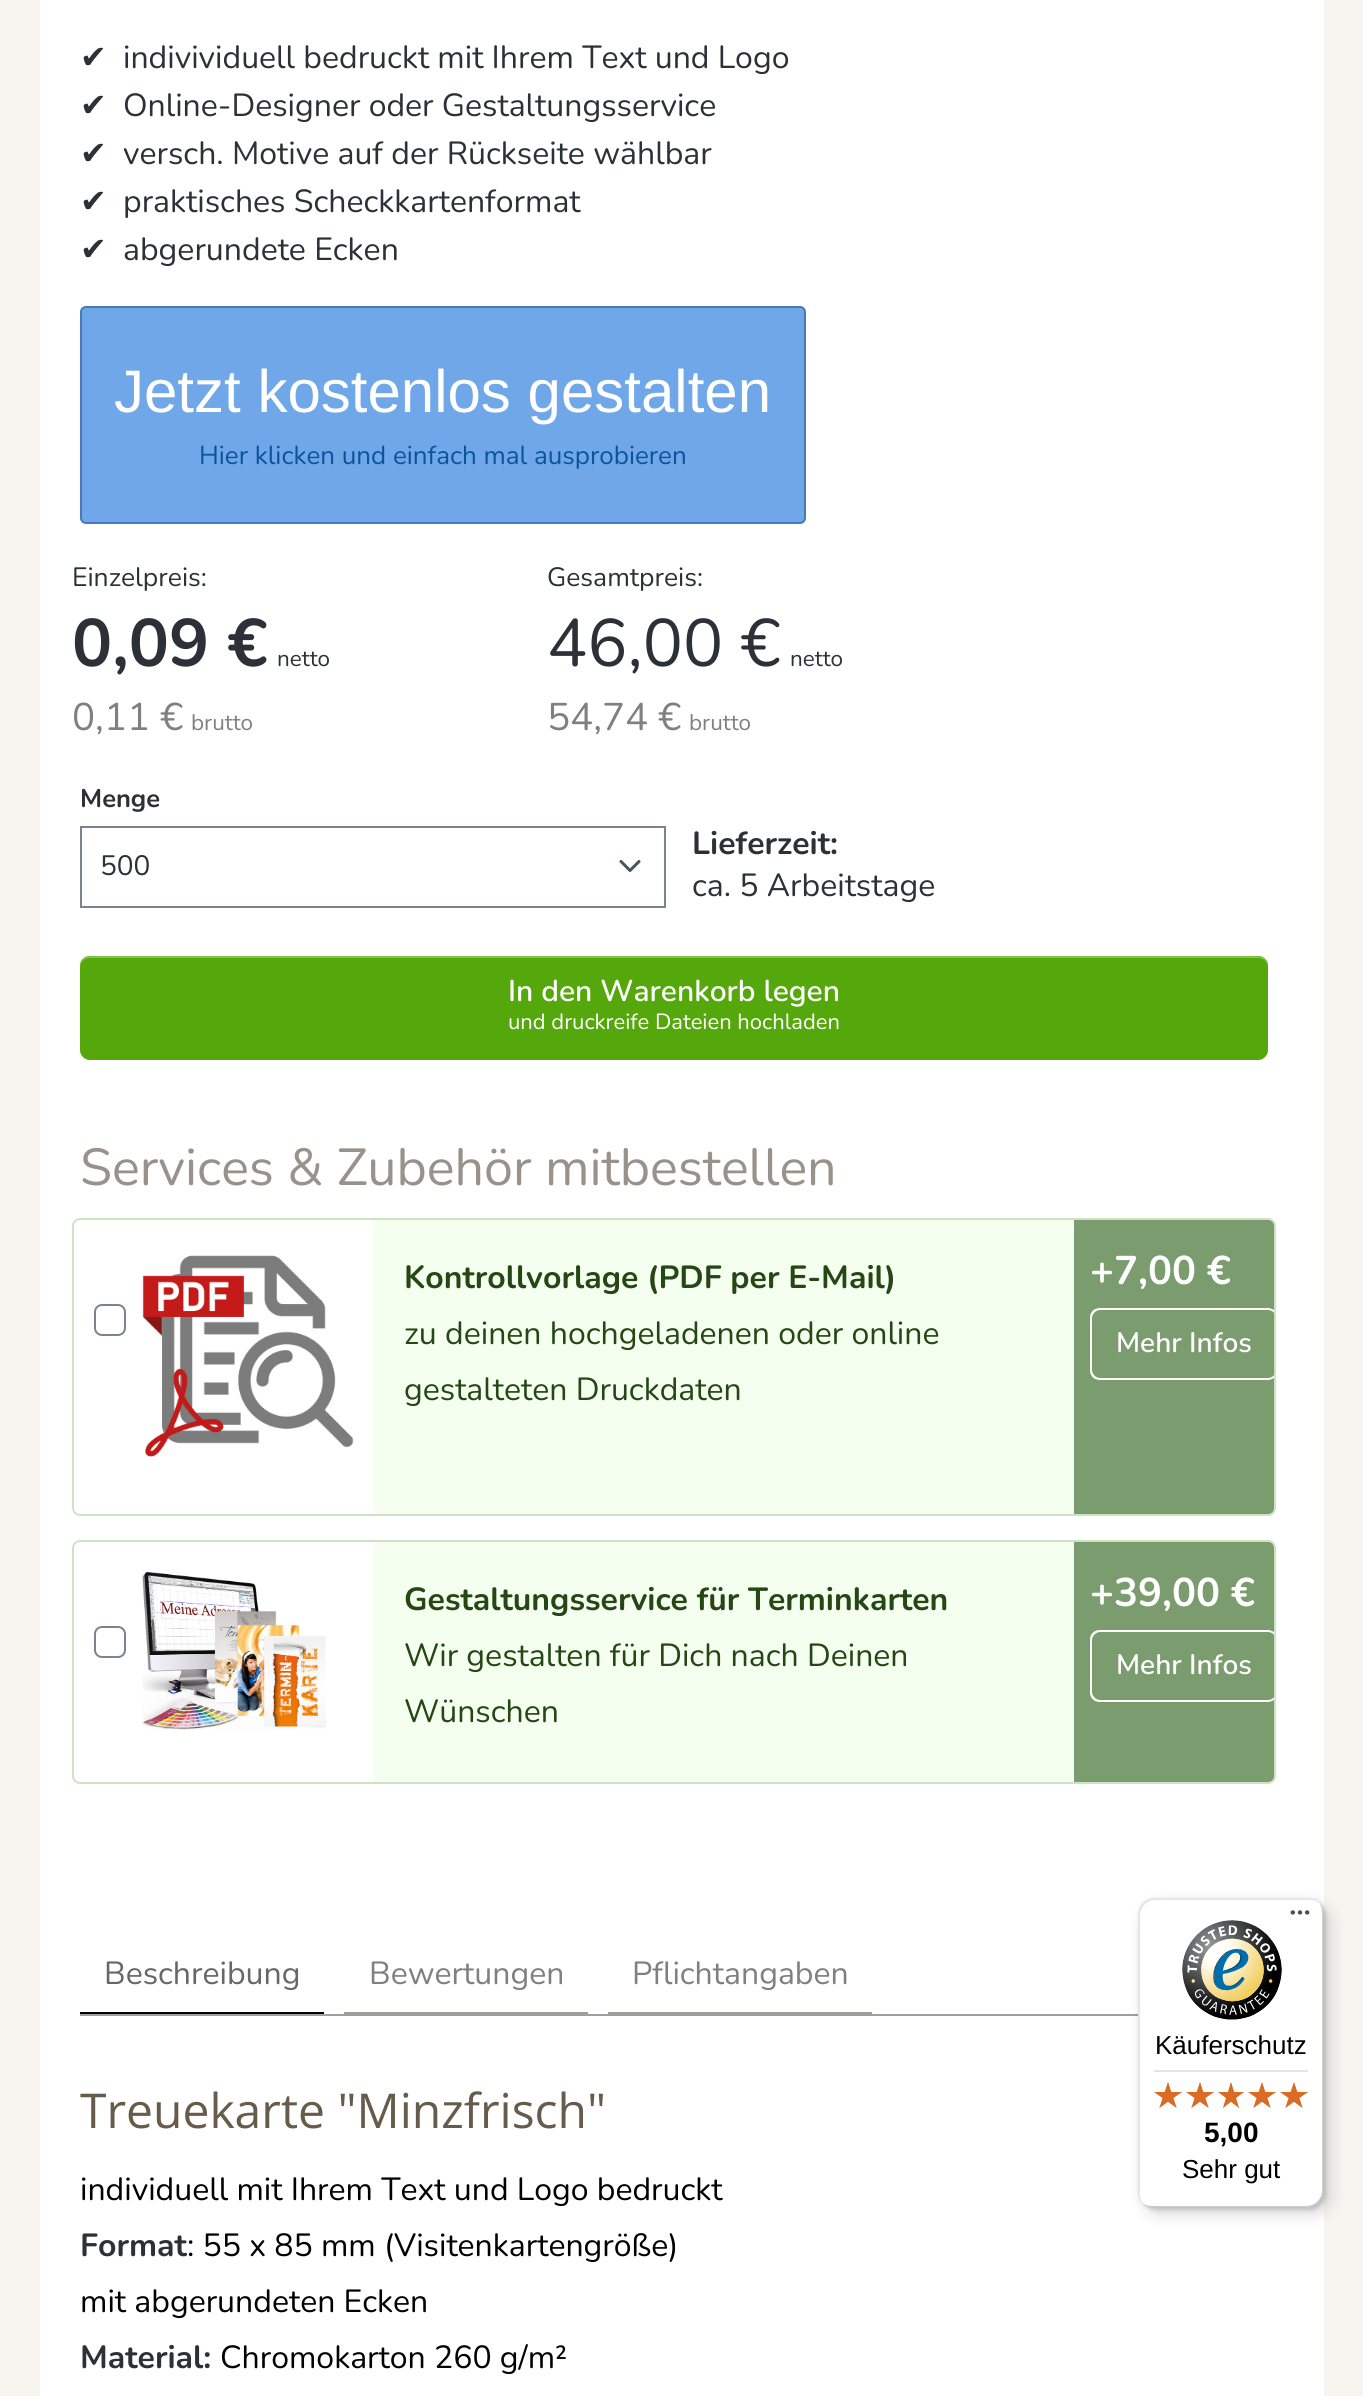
#include <cairo.h>
#include <math.h>
#include <stddef.h>


static void rgb(cairo_t *cr, int r, int g, int b)
{
	cairo_set_source_rgb(cr, r / 255.0, g / 255.0, b / 255.0);
}

static void face(cairo_t *cr, const char *family, double size, int italic, int bold)
{
	cairo_select_font_face(cr, family, italic ? CAIRO_FONT_SLANT_ITALIC : CAIRO_FONT_SLANT_NORMAL,
		bold ? CAIRO_FONT_WEIGHT_BOLD : CAIRO_FONT_WEIGHT_NORMAL);
	cairo_set_font_size(cr, size);
}

static void label(cairo_t *cr, double x, double y, const char *s)
{
	cairo_move_to(cr, x, y);
	cairo_show_text(cr, s);
}

static void rect(cairo_t *cr, double x, double y, double w, double h)
{
	cairo_rectangle(cr, x, y, w, h);
	cairo_fill(cr);
}

static void rrect(cairo_t *cr, double x, double y, double w, double h, double r)
{
	cairo_new_sub_path(cr);
	cairo_arc(cr, x + w - r, y + h - r, r, 0, M_PI / 2);
	cairo_arc(cr, x + r, y + h - r, r, M_PI / 2, M_PI);
	cairo_arc(cr, x + r, y + r, r, M_PI, 1.5 * M_PI);
	cairo_arc(cr, x + w - r, y + r, r, 1.5 * M_PI, 2 * M_PI);
	cairo_close_path(cr);
}

static void soft_shadow(cairo_t *cr, double x, double y, double w, double h, double r, double blur, double alpha)
{
	cairo_push_group_with_content(cr, CAIRO_CONTENT_ALPHA);
	cairo_set_operator(cr, CAIRO_OPERATOR_SOURCE);
	for (int i = 15; i >= -15 && fmin(w, h) + blur * i / 3 > 0; i -= 2) {
		double e = blur * i / 6;
		cairo_set_source_rgba(cr, 0, 0, 0, alpha * erfc((i - 1) / 8.5) / 2);
		rrect(cr, x - e, y - e, w + 2 * e, h + 2 * e, fmax(0, fmin(r + e + blur * .6, fmin(w, h) / 2 + e)));
		cairo_fill(cr);
	}
	cairo_pattern_t *soft = cairo_pop_group(cr);
	cairo_mask(cr, soft);
	cairo_pattern_destroy(soft);
}

static void image(cairo_t *cr, const char *path, double x, double y, double w, double h)
{
	cairo_surface_t *image = cairo_image_surface_create_from_png(path);
	cairo_save(cr);
	cairo_set_source_surface(cr, image, x, y);
	cairo_rectangle(cr, x, y, w, h);
	cairo_fill(cr);
	cairo_restore(cr);
	cairo_surface_destroy(image);
}

static void draw(cairo_t *cr) {
	rgb(cr, 248, 245, 241);
	cairo_paint(cr);
	rgb(cr, 255, 255, 255);
	rect(cr, 40, 0, 1284, 2396);
	face(cr, "DejaVu Sans", 32, 0, 0);
	rgb(cr, 43, 49, 54);
	label(cr, 80, 68, "✔");
	face(cr, "Nunito", 32, 0, 0);
	label(cr, 123, 68, "indivividuell bedruckt mit Ihrem Text und Logo");
	face(cr, "DejaVu Sans", 32, 0, 0);
	label(cr, 80, 116, "✔");
	face(cr, "Nunito", 32, 0, 0);
	label(cr, 123, 116, "Online-Designer oder Gestaltungsservice");
	face(cr, "DejaVu Sans", 32, 0, 0);
	label(cr, 80, 164, "✔");
	face(cr, "Nunito", 32, 0, 0);
	label(cr, 123, 164, "versch. Motive auf der Rückseite wählbar");
	face(cr, "DejaVu Sans", 32, 0, 0);
	label(cr, 80, 212, "✔");
	face(cr, "Nunito", 32, 0, 0);
	label(cr, 123, 212, "praktisches Scheckkartenformat");
	face(cr, "DejaVu Sans", 32, 0, 0);
	label(cr, 80, 260, "✔");
	face(cr, "Nunito", 32, 0, 0);
	label(cr, 123, 260, "abgerundete Ecken");
	rgb(cr, 111, 167, 233);
	rrect(cr, 81, 307, 724, 216, 5);
	cairo_fill_preserve(cr);
	rgb(cr, 71, 122, 182);
	cairo_stroke(cr);
	face(cr, "Liberation Sans", 60, 0, 0);
	rgb(cr, 255, 255, 255);
	label(cr, 114, 412, "Jetzt kostenlos gestalten");
	face(cr, "Nunito", 26, 0, 0);
	rgb(cr, 11, 83, 155);
	label(cr, 199, 464, "Hier klicken und einfach mal ausprobieren");
	face(cr, "Nunito", 26.5, 0, 0);
	rgb(cr, 43, 49, 54);
	label(cr, 72, 586, "Einzelpreis:");
	label(cr, 547, 586, "Gesamtpreis:");
	face(cr, "Nunito", 67, 0, 1);
	label(cr, 72, 666, "0,09 €");
	face(cr, "Nunito", 22.5, 0, 0);
	label(cr, 277, 666, "netto");
	face(cr, "Nunito", 67, 0, 0);
	label(cr, 547, 666, "46,00 €");
	face(cr, "Nunito", 22.5, 0, 0);
	label(cr, 790, 666, "netto");
	face(cr, "Nunito", 38.5, 0, 0);
	rgb(cr, 128, 128, 128);
	label(cr, 72, 730, "0,11 €");
	face(cr, "Nunito", 22.5, 0, 0);
	label(cr, 191, 730, "brutto");
	face(cr, "Nunito", 38.5, 0, 0);
	label(cr, 547, 730, "54,74 €");
	face(cr, "Nunito", 22.5, 0, 0);
	label(cr, 689, 730, "brutto");
	face(cr, "Nunito", 25.5, 0, 1);
	rgb(cr, 43, 49, 54);
	label(cr, 80, 807, "Menge");
	cairo_new_path(cr);
	cairo_move_to(cr, 621, 861.5);
	cairo_line_to(cr, 630, 870.5);
	cairo_line_to(cr, 639, 861.5);
	rgb(cr, 74, 84, 91);
	cairo_set_line_width(cr, 3);
	cairo_set_line_cap(cr, CAIRO_LINE_CAP_ROUND);
	cairo_set_line_join(cr, CAIRO_LINE_JOIN_ROUND);
	cairo_stroke(cr);
	cairo_rectangle(cr, 81, 827, 584, 80);
	rgb(cr, 121, 132, 144);
	cairo_set_line_width(cr, 2);
	cairo_set_line_cap(cr, CAIRO_LINE_CAP_BUTT);
	cairo_set_line_join(cr, CAIRO_LINE_JOIN_MITER);
	cairo_stroke(cr);
	face(cr, "Nunito", 28, 0, 0);
	rgb(cr, 43, 49, 54);
	label(cr, 100, 875, "500");
	face(cr, "Nunito", 32, 0, 1);
	label(cr, 692, 854, "Lieferzeit:");
	face(cr, "Nunito", 32, 0, 0);
	label(cr, 692, 896, "ca. 5 Arbeitstage");
	rgb(cr, 85, 168, 11);
	rrect(cr, 80, 956, 1188, 104, 10);
	cairo_fill(cr);
	rgb(cr, 128, 196, 68);
	cairo_new_path(cr);
	cairo_move_to(cr, 90, 958);
	cairo_line_to(cr, 1258, 958);
	cairo_curve_to(cr, 1264, 958, 1268, 962, 1268, 968);
	cairo_line_to(cr, 1268, 966);
	cairo_curve_to(cr, 1268, 960, 1264, 956, 1258, 956);
	cairo_line_to(cr, 90, 956);
	cairo_curve_to(cr, 84, 956, 80, 960, 80, 966);
	cairo_line_to(cr, 80, 968);
	cairo_curve_to(cr, 80, 962, 84, 958, 90, 958);
	cairo_close_path(cr);
	cairo_fill(cr);
	face(cr, "Nunito SemiBold", 30, 0, 0);
	rgb(cr, 255, 255, 255);
	label(cr, 508, 1001, "In den Warenkorb legen");
	face(cr, "Nunito", 22, 0, 0);
	label(cr, 508, 1029, "und druckreife Dateien hochladen");
	face(cr, "Nunito", 52, 0, 0);
	rgb(cr, 152, 146, 139);
	label(cr, 80, 1185, "Services & Zubehör mitbestellen");
	rrect(cr, 73, 1219, 1202, 296, 7);
	rgb(cr, 205, 228, 195);
	cairo_stroke(cr);
	rrect(cr, 95, 1305, 30, 30, 7);
	rgb(cr, 121, 132, 144);
	cairo_stroke(cr);
	image(cr, "image0.png", 142, 1255, 212, 202);
	rgb(cr, 244, 255, 239);
	rect(cr, 374, 1220, 700, 294);
	face(cr, "Nunito", 32, 0, 1);
	rgb(cr, 36, 71, 20);
	label(cr, 404, 1288, "Kontrollvorlage (PDF per E-Mail)");
	face(cr, "Nunito", 32, 0, 0);
	label(cr, 404, 1344, "zu deinen hochgeladenen oder online");
	label(cr, 404, 1400, "gestalteten Druckdaten");
	rgb(cr, 123, 156, 110);
	cairo_new_path(cr);
	cairo_move_to(cr, 1074, 1220);
	cairo_line_to(cr, 1268, 1220);
	cairo_curve_to(cr, 1271.5, 1220, 1274, 1222.5, 1274, 1226);
	cairo_line_to(cr, 1274, 1508);
	cairo_curve_to(cr, 1274, 1511.5, 1271.5, 1514, 1268, 1514);
	cairo_line_to(cr, 1074, 1514);
	cairo_close_path(cr);
	cairo_fill(cr);
	face(cr, "Nunito", 40, 0, 1);
	rgb(cr, 255, 255, 255);
	label(cr, 1090, 1284, "+7,00 €");
	cairo_new_path(cr);
	cairo_move_to(cr, 1100, 1308);
	cairo_curve_to(cr, 1094, 1308, 1090, 1312, 1090, 1318);
	cairo_line_to(cr, 1090, 1370);
	cairo_curve_to(cr, 1090, 1376, 1094, 1380, 1100, 1380);
	cairo_line_to(cr, 1268, 1380);
	cairo_curve_to(cr, 1270, 1380, 1272, 1379, 1274, 1378);
	cairo_line_to(cr, 1274, 1375);
	cairo_curve_to(cr, 1273, 1377, 1270, 1378, 1268, 1378);
	cairo_line_to(cr, 1100, 1378);
	cairo_curve_to(cr, 1096, 1378, 1092, 1374, 1092, 1370);
	cairo_line_to(cr, 1092, 1318);
	cairo_curve_to(cr, 1092, 1314, 1096, 1310, 1100, 1310);
	cairo_line_to(cr, 1268, 1310);
	cairo_curve_to(cr, 1270, 1310, 1273, 1311, 1274, 1313);
	cairo_line_to(cr, 1274, 1310);
	cairo_curve_to(cr, 1272, 1309, 1270, 1308, 1268, 1308);
	cairo_close_path(cr);
	cairo_fill(cr);
	face(cr, "Nunito SemiBold", 28, 0, 0);
	label(cr, 1116, 1352, "Mehr Infos");
	rrect(cr, 73, 1541, 1202, 242, 7);
	rgb(cr, 205, 228, 195);
	cairo_stroke(cr);
	rrect(cr, 95, 1627, 30, 30, 7);
	rgb(cr, 121, 132, 144);
	cairo_stroke(cr);
	image(cr, "image1.png", 142, 1572, 184, 158);
	rgb(cr, 244, 255, 239);
	rect(cr, 374, 1542, 700, 240);
	face(cr, "Nunito", 32, 0, 1);
	rgb(cr, 36, 71, 20);
	label(cr, 404, 1610, "Gestaltungsservice für Terminkarten");
	face(cr, "Nunito", 32, 0, 0);
	label(cr, 404, 1666, "Wir gestalten für Dich nach Deinen");
	label(cr, 404, 1722, "Wünschen");
	rgb(cr, 123, 156, 110);
	cairo_new_path(cr);
	cairo_move_to(cr, 1074, 1542);
	cairo_line_to(cr, 1268, 1542);
	cairo_curve_to(cr, 1271.5, 1542, 1274, 1544.5, 1274, 1548);
	cairo_line_to(cr, 1274, 1776);
	cairo_curve_to(cr, 1274, 1779.5, 1271.5, 1782, 1268, 1782);
	cairo_line_to(cr, 1074, 1782);
	cairo_close_path(cr);
	cairo_fill(cr);
	face(cr, "Nunito", 40, 0, 1);
	rgb(cr, 255, 255, 255);
	label(cr, 1090, 1606, "+39,00 €");
	cairo_new_path(cr);
	cairo_move_to(cr, 1100, 1630);
	cairo_curve_to(cr, 1094, 1630, 1090, 1634, 1090, 1640);
	cairo_line_to(cr, 1090, 1692);
	cairo_curve_to(cr, 1090, 1698, 1094, 1702, 1100, 1702);
	cairo_line_to(cr, 1268, 1702);
	cairo_curve_to(cr, 1270, 1702, 1272, 1701, 1274, 1700);
	cairo_line_to(cr, 1274, 1697);
	cairo_curve_to(cr, 1273, 1699, 1270, 1700, 1268, 1700);
	cairo_line_to(cr, 1100, 1700);
	cairo_curve_to(cr, 1096, 1700, 1092, 1696, 1092, 1692);
	cairo_line_to(cr, 1092, 1640);
	cairo_curve_to(cr, 1092, 1636, 1096, 1632, 1100, 1632);
	cairo_line_to(cr, 1268, 1632);
	cairo_curve_to(cr, 1270, 1632, 1273, 1633, 1274, 1635);
	cairo_line_to(cr, 1274, 1632);
	cairo_curve_to(cr, 1272, 1631, 1270, 1630, 1268, 1630);
	cairo_close_path(cr);
	cairo_fill(cr);
	face(cr, "Nunito SemiBold", 28, 0, 0);
	label(cr, 1116, 1674, "Mehr Infos");
	rgb(cr, 162, 158, 154);
	rect(cr, 80, 2014, 1058, 2);
	rgb(cr, 0, 0, 0);
	rect(cr, 80, 2012, 244, 2);
	face(cr, "Nunito", 32, 0, 0);
	rgb(cr, 103, 103, 103);
	label(cr, 104, 1984, "Beschreibung");
	rgb(cr, 162, 158, 154);
	rect(cr, 344, 2012, 244, 2);
	rgb(cr, 128, 128, 128);
	label(cr, 369, 1984, "Bewertungen");
	rgb(cr, 162, 158, 154);
	rect(cr, 608, 2012, 264, 2);
	rgb(cr, 128, 128, 128);
	label(cr, 632, 1984, "Pflichtangaben");
	face(cr, "Open Sans", 48, 0, 0);
	rgb(cr, 103, 91, 75);
	label(cr, 80, 2128, "Treuekarte \"Minzfrisch\"");
	face(cr, "Nunito", 32, 0, 0);
	rgb(cr, 0, 0, 0);
	label(cr, 80, 2200, "individuell mit Ihrem Text und Logo bedruckt");
	face(cr, "Nunito", 32, 0, 1);
	rgb(cr, 43, 49, 54);
	label(cr, 80, 2256, "Format");
	face(cr, "Nunito", 32, 0, 0);
	rgb(cr, 0, 0, 0);
	label(cr, 187, 2256, ": 55 x 85 mm (Visitenkartengröße)");
	label(cr, 80, 2312, "mit abgerundeten Ecken");
	face(cr, "Nunito", 32, 0, 1);
	rgb(cr, 43, 49, 54);
	label(cr, 80, 2368, "Material:");
	face(cr, "Nunito", 32, 0, 0);
	rgb(cr, 0, 0, 0);
	label(cr, 220, 2368, "Chromokarton 260 g/m²");
	rgb(cr, 0, 0, 0);
	soft_shadow(cr, 1144, 1904, 186, 310, 16, 8, 0.15);
	soft_shadow(cr, 1140, 1900, 186, 310, 16, 2, 0.15);
	rgb(cr, 255, 255, 255);
	rrect(cr, 1138, 1898, 186, 310, 16);
	cairo_fill(cr);
	cairo_set_source_rgba(cr, 0, 0, 0, 0.1);
	cairo_new_path(cr);
	cairo_move_to(cr, 1156, 1900);
	cairo_line_to(cr, 1310, 1900);
	cairo_curve_to(cr, 1314, 1900, 1317, 1901, 1320, 1903);
	cairo_curve_to(cr, 1317, 1900, 1313, 1898, 1308, 1898);
	cairo_line_to(cr, 1154, 1898);
	cairo_curve_to(cr, 1145, 1898, 1138, 1905, 1138, 1914);
	cairo_line_to(cr, 1138, 2192);
	cairo_curve_to(cr, 1138, 2197, 1140, 2201, 1143, 2204);
	cairo_curve_to(cr, 1141, 2201, 1140, 2198, 1140, 2194);
	cairo_line_to(cr, 1140, 1916);
	cairo_curve_to(cr, 1140, 1907, 1147, 1900, 1156, 1900);
	cairo_close_path(cr);
	cairo_fill(cr);
	cairo_set_source_rgba(cr, 0, 0, 0, 0.2);
	cairo_new_path(cr);
	cairo_move_to(cr, 1142, 2203);
	cairo_curve_to(cr, 1145, 2206, 1149, 2208, 1154, 2208);
	cairo_line_to(cr, 1308, 2208);
	cairo_curve_to(cr, 1317, 2208, 1324, 2201, 1324, 2192);
	cairo_line_to(cr, 1324, 1914);
	cairo_curve_to(cr, 1324, 1909, 1322, 1905, 1319, 1902);
	cairo_curve_to(cr, 1321, 1905, 1322, 1908, 1322, 1912);
	cairo_line_to(cr, 1322, 2190);
	cairo_curve_to(cr, 1322, 2199, 1315, 2206, 1306, 2206);
	cairo_line_to(cr, 1152, 2206);
	cairo_curve_to(cr, 1148, 2206, 1145, 2205, 1142, 2203);
	cairo_close_path(cr);
	cairo_fill(cr);
	cairo_set_source_rgba(cr, 0.196, 0.196, 0.196, 0.2);
	cairo_new_path(cr);
	cairo_move_to(cr, 1143, 2203);
	cairo_curve_to(cr, 1146, 2206, 1150, 2208, 1154, 2208);
	cairo_line_to(cr, 1308, 2208);
	cairo_curve_to(cr, 1317, 2208, 1324, 2201, 1324, 2192);
	cairo_line_to(cr, 1324, 1914);
	cairo_curve_to(cr, 1324, 1910, 1322, 1906, 1319, 1903);
	cairo_curve_to(cr, 1322, 1906, 1323, 1909, 1323, 1913);
	cairo_line_to(cr, 1323, 2191);
	cairo_curve_to(cr, 1323, 2200, 1316, 2207, 1307, 2207);
	cairo_line_to(cr, 1153, 2207);
	cairo_curve_to(cr, 1149, 2207, 1146, 2206, 1143, 2203);
	cairo_close_path(cr);
	cairo_fill(cr);
	cairo_set_source_rgba(cr, 1, 1, 1, 0.3);
	cairo_new_path(cr);
	cairo_move_to(cr, 1143, 2203);
	cairo_curve_to(cr, 1146, 2206, 1150, 2208, 1154, 2208);
	cairo_line_to(cr, 1308, 2208);
	cairo_curve_to(cr, 1317, 2208, 1324, 2201, 1324, 2192);
	cairo_line_to(cr, 1324, 1914);
	cairo_curve_to(cr, 1324, 1910, 1322, 1906, 1319, 1903);
	cairo_curve_to(cr, 1322, 1906, 1323, 1909, 1323, 1913);
	cairo_line_to(cr, 1323, 2191);
	cairo_curve_to(cr, 1323, 2200, 1316, 2207, 1307, 2207);
	cairo_line_to(cr, 1153, 2207);
	cairo_curve_to(cr, 1149, 2207, 1146, 2206, 1143, 2203);
	cairo_close_path(cr);
	cairo_fill(cr);
	image(cr, "image2.png", 1290, 1910, 20, 5);
	image(cr, "image3.png", 1182, 1920, 100, 100);
	face(cr, "Liberation Sans", 26, 0, 0);
	rgb(cr, 0, 0, 0);
	label(cr, 1155, 2054, "Käuferschutz");
	rgb(cr, 229, 229, 229);
	rect(cr, 1154, 2070, 154, 2);
	image(cr, "image4.png", 1154, 2082, 28, 26);
	image(cr, "image4.png", 1186, 2082, 28, 26);
	image(cr, "image5.png", 1218, 2082, 26, 26);
	image(cr, "image4.png", 1248, 2082, 28, 26);
	image(cr, "image4.png", 1280, 2082, 28, 26);
	image(cr, "image6.png", 1154, 2082, 28, 26);
	image(cr, "image6.png", 1186, 2082, 28, 26);
	image(cr, "image7.png", 1218, 2082, 26, 26);
	image(cr, "image6.png", 1248, 2082, 28, 26);
	image(cr, "image6.png", 1280, 2082, 28, 26);
	face(cr, "Liberation Sans", 28, 0, 1);
	rgb(cr, 0, 0, 0);
	label(cr, 1204, 2142, "5,00");
	face(cr, "Liberation Sans", 26, 0, 0);
	label(cr, 1182, 2178, "Sehr gut");
}

int main(void) {
	cairo_surface_t *surface = cairo_image_surface_create(CAIRO_FORMAT_RGB24, 1363, 2396);
	cairo_t *cr = cairo_create(surface);
	cairo_font_options_t *options = cairo_font_options_create();
	cairo_font_options_set_hint_metrics(options, CAIRO_HINT_METRICS_OFF);
	cairo_font_options_set_hint_style(options, CAIRO_HINT_STYLE_NONE);
	cairo_set_font_options(cr, options);
	cairo_set_miter_limit(cr, 4);
	draw(cr);
	cairo_surface_write_to_png(surface, "render.png");
	cairo_font_options_destroy(options);
	cairo_destroy(cr);
	cairo_surface_destroy(surface);
	return 0;
}
